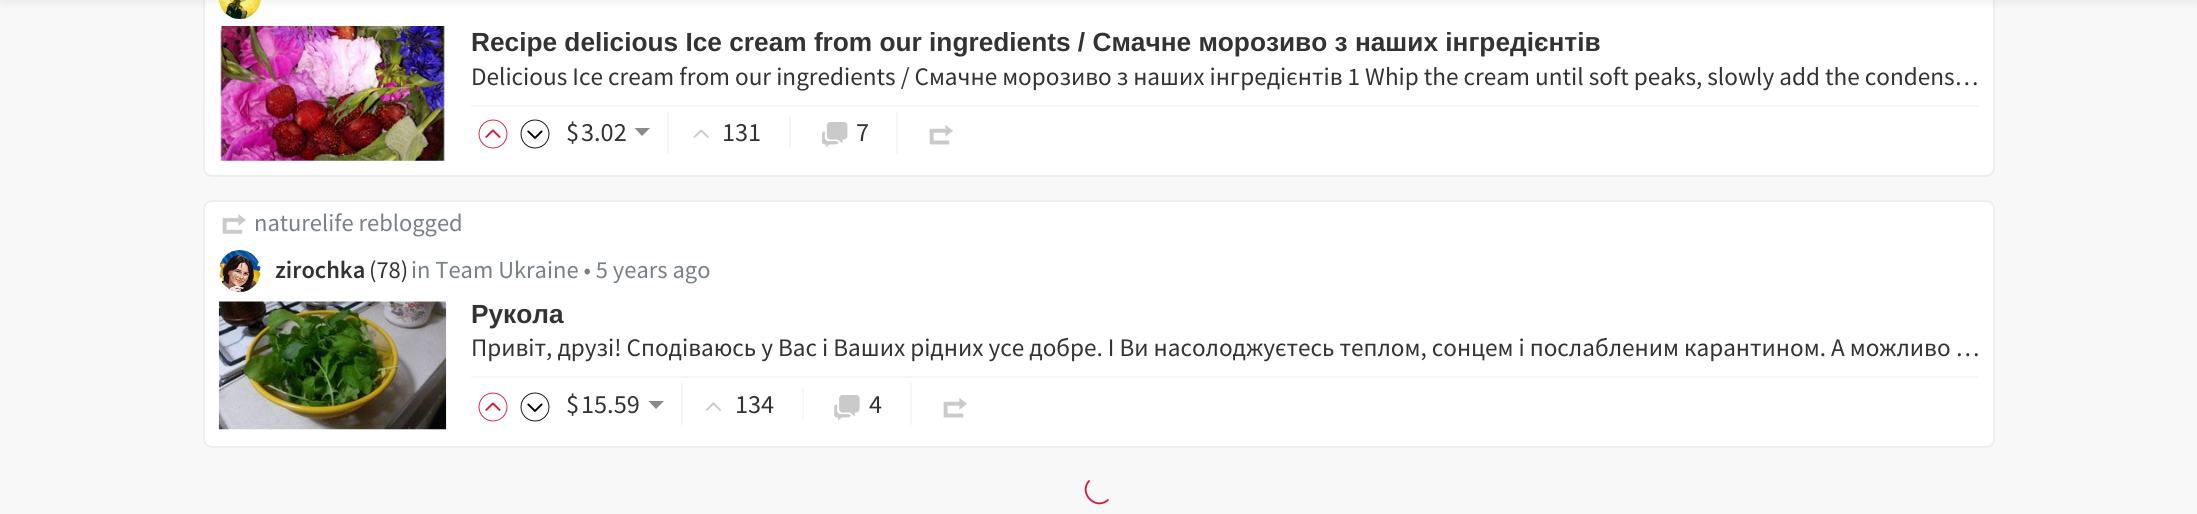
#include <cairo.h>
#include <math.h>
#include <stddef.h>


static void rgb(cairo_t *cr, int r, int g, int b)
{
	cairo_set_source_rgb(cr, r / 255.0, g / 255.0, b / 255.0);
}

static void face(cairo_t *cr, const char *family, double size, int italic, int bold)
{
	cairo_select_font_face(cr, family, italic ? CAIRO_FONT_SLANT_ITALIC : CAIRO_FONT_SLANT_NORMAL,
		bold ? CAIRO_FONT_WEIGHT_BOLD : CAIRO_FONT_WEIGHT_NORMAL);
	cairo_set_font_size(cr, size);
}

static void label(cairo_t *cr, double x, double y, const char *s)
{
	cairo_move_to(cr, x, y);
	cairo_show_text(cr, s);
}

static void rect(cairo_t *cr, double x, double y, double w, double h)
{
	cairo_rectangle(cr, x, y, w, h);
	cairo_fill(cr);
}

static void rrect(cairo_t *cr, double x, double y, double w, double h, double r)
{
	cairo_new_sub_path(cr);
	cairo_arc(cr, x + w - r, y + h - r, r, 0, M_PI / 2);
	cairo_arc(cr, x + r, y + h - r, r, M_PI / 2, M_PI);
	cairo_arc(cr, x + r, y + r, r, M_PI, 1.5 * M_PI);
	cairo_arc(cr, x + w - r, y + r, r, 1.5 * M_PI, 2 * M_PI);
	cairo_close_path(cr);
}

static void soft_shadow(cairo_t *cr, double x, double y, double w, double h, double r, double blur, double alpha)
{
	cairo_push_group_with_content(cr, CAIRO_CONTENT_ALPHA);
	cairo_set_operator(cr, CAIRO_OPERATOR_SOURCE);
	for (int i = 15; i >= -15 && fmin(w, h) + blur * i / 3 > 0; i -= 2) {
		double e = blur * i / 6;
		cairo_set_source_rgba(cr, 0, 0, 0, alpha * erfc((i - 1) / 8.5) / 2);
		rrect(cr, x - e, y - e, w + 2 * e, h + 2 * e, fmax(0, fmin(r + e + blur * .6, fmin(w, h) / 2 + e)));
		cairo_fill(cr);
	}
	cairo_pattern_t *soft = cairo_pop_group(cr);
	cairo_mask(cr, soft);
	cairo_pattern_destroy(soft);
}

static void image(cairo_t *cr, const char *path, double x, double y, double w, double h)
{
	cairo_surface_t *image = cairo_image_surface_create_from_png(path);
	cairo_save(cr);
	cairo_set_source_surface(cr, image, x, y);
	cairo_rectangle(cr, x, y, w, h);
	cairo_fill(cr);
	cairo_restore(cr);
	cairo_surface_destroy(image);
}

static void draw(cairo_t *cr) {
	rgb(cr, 248, 248, 248);
	cairo_paint(cr);
	rgb(cr, 255, 255, 255);
	rrect(cr, 204, -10, 1790, 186, 8);
	cairo_fill_preserve(cr);
	rgb(cr, 238, 238, 238);
	cairo_stroke(cr);
	image(cr, "image0.png", 219, 0, 42, 19);
	rgb(cr, 0, 0, 0);
	soft_shadow(cr, 0, -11, 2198, 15, 0, 3.5, 0.05);
	image(cr, "image1.png", 219, 26, 226, 135);
	face(cr, "Liberation Sans", 26.25, 0, 1);
	rgb(cr, 51, 51, 51);
	label(cr, 471, 51, "Recipe delicious Ice cream from our ingredients / Смачне морозиво з наших інгредієнтів");
	face(cr, "Source Sans Pro", 25.2, 0, 0);
	label(cr, 471, 85, "Delicious Ice cream from our ingredients / Смачне морозиво з наших інгредієнтів 1 Whip the cream until soft peaks, slowly add the condens…");
	rgb(cr, 246, 246, 246);
	rect(cr, 471, 105, 1508, 2);
	rect(cr, 667, 112, 2, 42);
	image(cr, "image2.png", 478, 119, 30, 30);
	image(cr, "image3.png", 520, 119, 30, 30);
	face(cr, "Source Sans Pro", 26.25, 0, 0);
	rgb(cr, 51, 51, 51);
	label(cr, 566, 141, "$");
	label(cr, 581, 141, "3.02");
	rgb(cr, 138, 138, 138);
	cairo_new_path(cr);
	cairo_move_to(cr, 634.5, 128);
	cairo_line_to(cr, 642, 136);
	cairo_line_to(cr, 650, 128);
	cairo_close_path(cr);
	cairo_fill(cr);
	rgb(cr, 246, 246, 246);
	rect(cr, 789, 116, 2, 33);
	image(cr, "image4.png", 693, 129, 16, 9);
	rgb(cr, 51, 51, 51);
	label(cr, 722, 141, "131");
	image(cr, "image5.png", 822, 122, 26, 25);
	label(cr, 856, 141, "7");
	rgb(cr, 246, 246, 246);
	rect(cr, 896, 112, 2, 42);
	image(cr, "image6.png", 929, 125, 24, 20);
	rgb(cr, 255, 255, 255);
	rrect(cr, 204, 201, 1790, 246, 8);
	cairo_fill_preserve(cr);
	rgb(cr, 238, 238, 238);
	cairo_stroke(cr);
	image(cr, "image7.png", 222, 214, 24, 20);
	face(cr, "Source Sans Pro", 24.5, 0, 0);
	rgb(cr, 120, 129, 135);
	label(cr, 254, 231, "naturelife reblogged");
	image(cr, "image8.png", 219, 250, 42, 42);
	face(cr, "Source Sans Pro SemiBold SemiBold", 24.5, 0, 0);
	rgb(cr, 51, 51, 51);
	label(cr, 275, 278, "zirochka");
	face(cr, "Source Sans Pro", 24.5, 0, 0);
	label(cr, 369, 278, "(78)");
	rgb(cr, 120, 129, 135);
	label(cr, 411, 278, "in Team Ukraine • 5 years ago");
	image(cr, "image9.png", 218, 301, 229, 129);
	face(cr, "Liberation Sans", 26.25, 0, 1);
	rgb(cr, 51, 51, 51);
	label(cr, 471, 323, "Рукола");
	face(cr, "Source Sans Pro", 25.2, 0, 0);
	label(cr, 471, 356, "Привіт, друзі! Сподіваюсь у Вас і Ваших рідних усе добре. І Ви насолоджуєтесь теплом, сонцем і послабленим карантином. А можливо …");
	rgb(cr, 246, 246, 246);
	rect(cr, 471, 376, 1508, 2);
	rect(cr, 681, 383, 2, 42);
	image(cr, "image2.png", 478, 392, 30, 30);
	image(cr, "image3.png", 520, 392, 30, 30);
	face(cr, "Source Sans Pro", 26.25, 0, 0);
	rgb(cr, 51, 51, 51);
	label(cr, 566, 413, "$");
	label(cr, 581, 413, "15.59");
	rgb(cr, 138, 138, 138);
	cairo_new_path(cr);
	cairo_move_to(cr, 648.5, 401);
	cairo_line_to(cr, 656, 409);
	cairo_line_to(cr, 664, 401);
	cairo_close_path(cr);
	cairo_fill(cr);
	rgb(cr, 246, 246, 246);
	rect(cr, 802, 387, 2, 33);
	image(cr, "image10.png", 706, 402, 15, 9);
	rgb(cr, 51, 51, 51);
	label(cr, 735, 413, "134");
	image(cr, "image11.png", 834, 395, 26, 26);
	label(cr, 869, 413, "4");
	rgb(cr, 246, 246, 246);
	rect(cr, 910, 383, 2, 42);
	image(cr, "image6.png", 943, 398, 24, 20);
	cairo_new_path(cr);
	cairo_move_to(cr, 1108.5, 499.5);
	cairo_curve_to(cr, 1096, 511.5, 1077.5, 493, 1089.5, 480.5);
	rgb(cr, 227, 19, 55);
	cairo_set_line_width(cr, 1.8);
	cairo_stroke(cr);
}

int main(void) {
	cairo_surface_t *surface = cairo_image_surface_create(CAIRO_FORMAT_RGB24, 2197, 514);
	cairo_t *cr = cairo_create(surface);
	cairo_font_options_t *options = cairo_font_options_create();
	cairo_font_options_set_hint_metrics(options, CAIRO_HINT_METRICS_OFF);
	cairo_font_options_set_hint_style(options, CAIRO_HINT_STYLE_NONE);
	cairo_set_font_options(cr, options);
	cairo_set_miter_limit(cr, 4);
	draw(cr);
	cairo_surface_write_to_png(surface, "render.png");
	cairo_font_options_destroy(options);
	cairo_destroy(cr);
	cairo_surface_destroy(surface);
	return 0;
}
